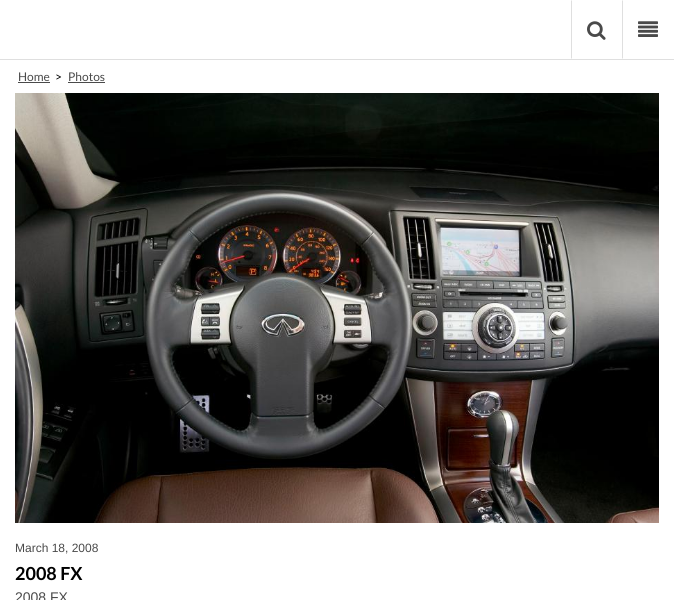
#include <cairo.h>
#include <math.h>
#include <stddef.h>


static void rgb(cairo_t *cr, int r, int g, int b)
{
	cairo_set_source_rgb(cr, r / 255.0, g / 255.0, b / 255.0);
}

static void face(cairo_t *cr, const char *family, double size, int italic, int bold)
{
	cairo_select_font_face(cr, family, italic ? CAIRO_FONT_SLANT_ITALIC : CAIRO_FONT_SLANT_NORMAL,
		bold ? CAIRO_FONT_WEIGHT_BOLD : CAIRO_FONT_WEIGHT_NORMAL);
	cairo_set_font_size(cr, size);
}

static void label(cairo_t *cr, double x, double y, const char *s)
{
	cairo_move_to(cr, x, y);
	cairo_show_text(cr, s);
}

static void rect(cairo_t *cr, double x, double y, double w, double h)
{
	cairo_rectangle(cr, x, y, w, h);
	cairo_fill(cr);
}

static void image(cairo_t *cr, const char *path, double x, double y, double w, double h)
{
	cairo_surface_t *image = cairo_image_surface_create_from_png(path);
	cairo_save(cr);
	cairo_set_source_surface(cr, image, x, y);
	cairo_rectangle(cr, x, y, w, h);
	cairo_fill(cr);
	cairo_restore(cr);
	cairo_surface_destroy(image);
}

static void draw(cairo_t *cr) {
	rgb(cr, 255, 255, 255);
	cairo_paint(cr);
	rgb(cr, 223, 223, 223);
	rect(cr, 0, 59, 674, 1);
	cairo_new_path(cr);
	cairo_move_to(cr, 571, 59);
	cairo_line_to(cr, 571, 0);
	cairo_line_to(cr, 572, 1);
	cairo_line_to(cr, 572, 58);
	cairo_close_path(cr);
	cairo_fill(cr);
	image(cr, "image0.png", 587, 21, 19, 19);
	cairo_new_path(cr);
	cairo_move_to(cr, 622, 59);
	cairo_line_to(cr, 622, 0);
	cairo_line_to(cr, 623, 1);
	cairo_line_to(cr, 623, 58);
	cairo_close_path(cr);
	cairo_fill(cr);
	image(cr, "image1.png", 638, 21, 20, 16);
	face(cr, "Lato", 12, 0, 0);
	rgb(cr, 74, 74, 74);
	label(cr, 18, 81, "Home");
	rect(cr, 18, 82, 32, 1);
	rgb(cr, 0, 0, 0);
	label(cr, 55, 81, ">");
	rgb(cr, 74, 74, 74);
	label(cr, 68, 81, "Photos");
	rect(cr, 68, 82, 37, 1);
	image(cr, "image2.png", 15, 93, 644, 430);
	face(cr, "Liberation Sans", 12, 0, 0);
	label(cr, 15, 552, "March 18, 2008");
	face(cr, "Lato", 18, 0, 1);
	rgb(cr, 0, 0, 0);
	label(cr, 15, 580, "2008 FX");
	face(cr, "Liberation Sans", 14, 0, 0);
	rgb(cr, 74, 74, 74);
	label(cr, 15, 602, "2008 FX");
}

int main(void) {
	cairo_surface_t *surface = cairo_image_surface_create(CAIRO_FORMAT_RGB24, 674, 600);
	cairo_t *cr = cairo_create(surface);
	cairo_font_options_t *options = cairo_font_options_create();
	cairo_font_options_set_hint_metrics(options, CAIRO_HINT_METRICS_OFF);
	cairo_font_options_set_hint_style(options, CAIRO_HINT_STYLE_NONE);
	cairo_set_font_options(cr, options);
	cairo_set_miter_limit(cr, 4);
	draw(cr);
	cairo_surface_write_to_png(surface, "render.png");
	cairo_font_options_destroy(options);
	cairo_destroy(cr);
	cairo_surface_destroy(surface);
	return 0;
}
